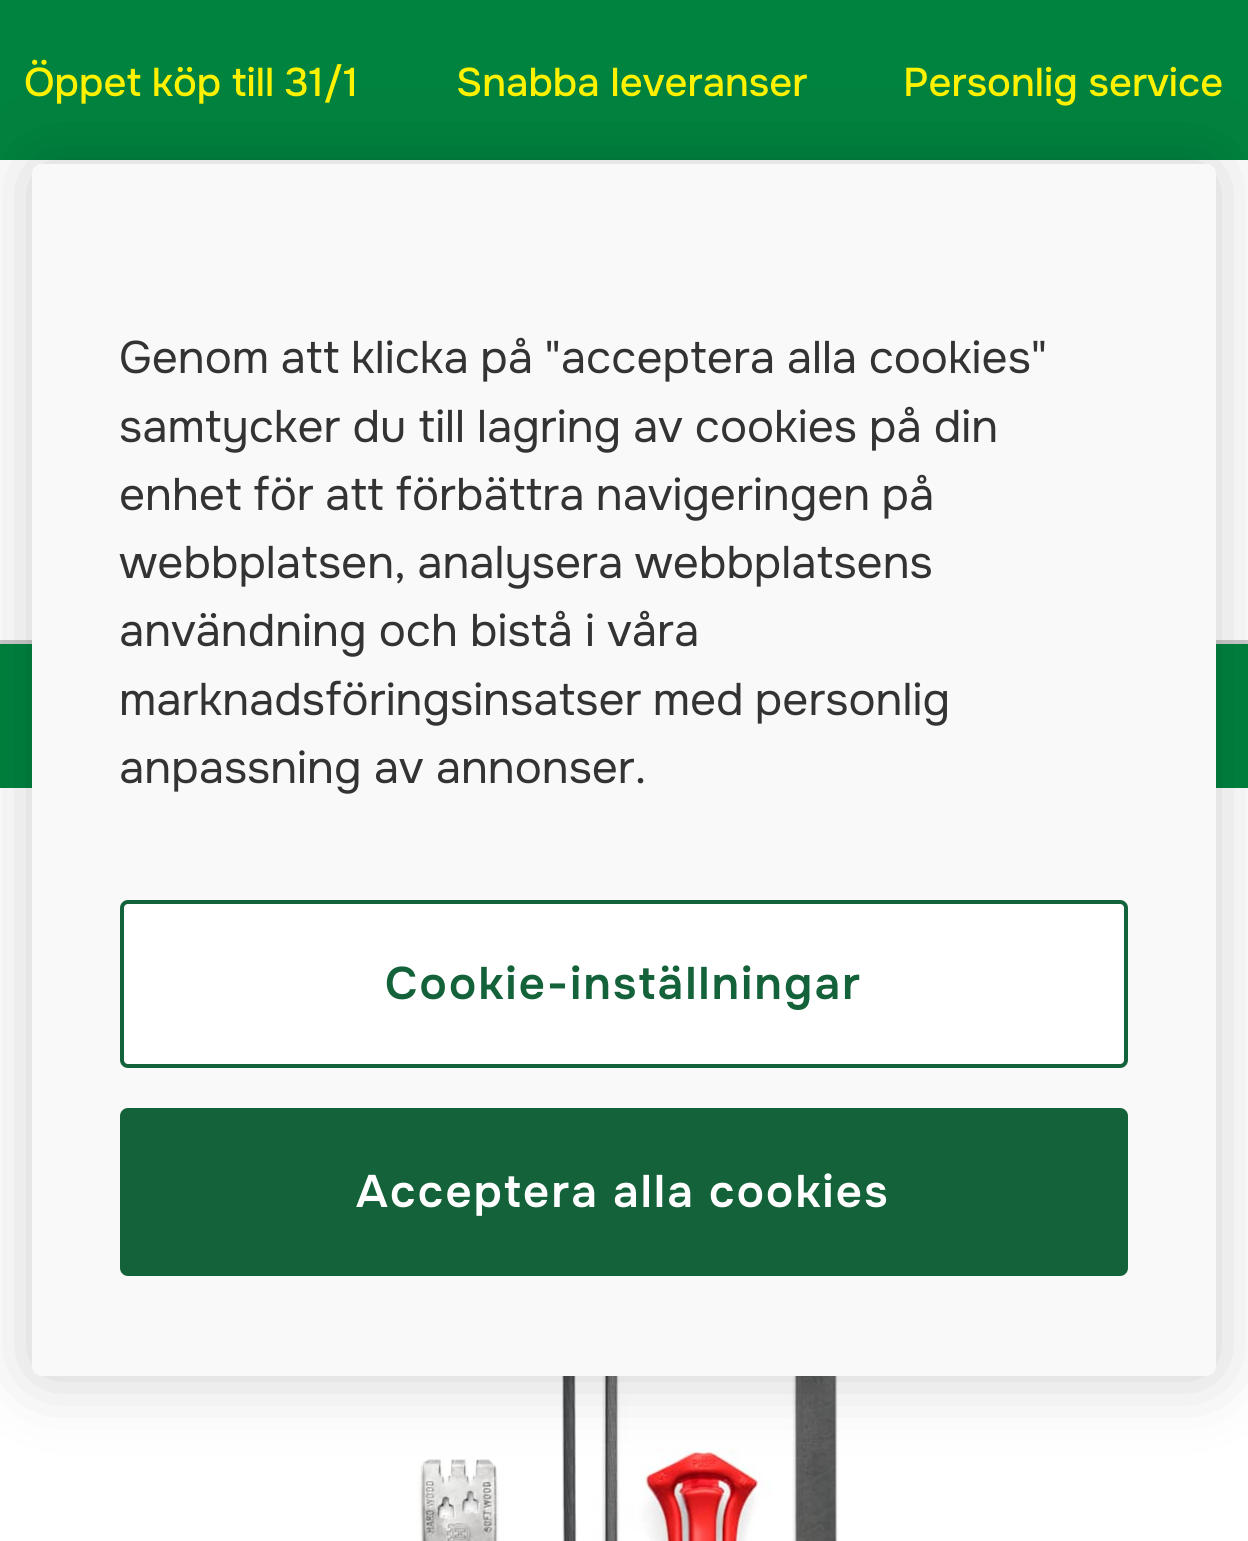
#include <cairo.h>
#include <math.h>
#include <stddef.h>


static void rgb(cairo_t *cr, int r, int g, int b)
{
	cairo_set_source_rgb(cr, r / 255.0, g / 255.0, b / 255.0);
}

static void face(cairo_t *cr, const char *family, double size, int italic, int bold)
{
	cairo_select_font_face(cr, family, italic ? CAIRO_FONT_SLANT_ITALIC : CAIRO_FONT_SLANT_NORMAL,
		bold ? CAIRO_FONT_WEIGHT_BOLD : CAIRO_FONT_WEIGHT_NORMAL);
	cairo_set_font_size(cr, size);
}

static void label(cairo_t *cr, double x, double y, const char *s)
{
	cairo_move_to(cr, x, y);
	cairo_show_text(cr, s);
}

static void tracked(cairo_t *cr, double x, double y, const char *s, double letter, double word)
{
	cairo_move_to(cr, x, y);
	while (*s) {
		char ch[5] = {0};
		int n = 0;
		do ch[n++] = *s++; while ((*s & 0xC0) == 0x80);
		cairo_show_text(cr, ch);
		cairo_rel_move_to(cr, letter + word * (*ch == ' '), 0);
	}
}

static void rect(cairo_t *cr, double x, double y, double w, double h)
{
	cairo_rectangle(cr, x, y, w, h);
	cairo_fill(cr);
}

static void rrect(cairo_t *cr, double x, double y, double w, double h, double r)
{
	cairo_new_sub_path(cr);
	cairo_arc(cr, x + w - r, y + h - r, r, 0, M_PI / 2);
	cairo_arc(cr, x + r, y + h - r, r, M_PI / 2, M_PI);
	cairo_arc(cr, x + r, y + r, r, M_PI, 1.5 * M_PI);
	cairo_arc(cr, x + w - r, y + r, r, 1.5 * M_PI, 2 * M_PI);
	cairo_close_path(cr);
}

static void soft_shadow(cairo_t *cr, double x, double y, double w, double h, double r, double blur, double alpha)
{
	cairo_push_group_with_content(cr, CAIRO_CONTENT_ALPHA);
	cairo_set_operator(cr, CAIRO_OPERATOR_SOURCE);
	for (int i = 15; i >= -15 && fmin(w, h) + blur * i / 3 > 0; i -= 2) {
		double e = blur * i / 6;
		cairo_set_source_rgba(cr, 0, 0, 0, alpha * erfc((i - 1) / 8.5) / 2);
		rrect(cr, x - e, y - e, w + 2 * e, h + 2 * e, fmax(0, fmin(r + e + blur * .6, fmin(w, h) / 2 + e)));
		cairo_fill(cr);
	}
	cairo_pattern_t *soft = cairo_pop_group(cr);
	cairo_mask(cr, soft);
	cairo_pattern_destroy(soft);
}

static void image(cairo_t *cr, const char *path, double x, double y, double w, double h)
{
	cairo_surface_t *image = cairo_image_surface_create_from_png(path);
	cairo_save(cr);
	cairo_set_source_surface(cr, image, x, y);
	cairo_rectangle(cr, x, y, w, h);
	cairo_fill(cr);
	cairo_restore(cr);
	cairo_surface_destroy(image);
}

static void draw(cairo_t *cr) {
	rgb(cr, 0, 131, 62);
	cairo_paint(cr);
	face(cr, "Onest Medium", 40, 0, 0);
	rgb(cr, 255, 242, 0);
	tracked(cr, 24, 96, "Öppet köp till 31/1", 0, -0.5);
	label(cr, 456, 96, "Snabba leveranser");
	label(cr, 903, 96, "Personlig service");
	rgb(cr, 255, 255, 255);
	rect(cr, 0, 160, 1248, 480);
	rgb(cr, 203, 203, 203);
	rect(cr, 0, 640, 1248, 4);
	rgb(cr, 255, 255, 255);
	rect(cr, 0, 788, 1248, 753);
	image(cr, "image0.png", 418, 1376, 420, 165);
	rgb(cr, 0, 0, 0);
	soft_shadow(cr, 32, 164, 1184, 1212, 10, 36, 0.2);
	rgb(cr, 249, 249, 249);
	rrect(cr, 32, 164, 1184, 1212, 10);
	cairo_fill(cr);
	face(cr, "Onest", 45.5, 0, 0);
	rgb(cr, 51, 51, 51);
	tracked(cr, 119, 373, "Genom att klicka på \"acceptera alla cookies\"", 0, -0.75);
	tracked(cr, 119, 442, "samtycker du till lagring av cookies på din", 0, -0.25);
	tracked(cr, 119, 510, "enhet för att förbättra navigeringen på", 0, -1);
	tracked(cr, 119, 578, "webbplatsen, analysera webbplatsens", 0, -1);
	label(cr, 119, 646, "användning och bistå i våra");
	tracked(cr, 119, 715, "marknadsföringsinsatser med personlig", 0, -1);
	label(cr, 119, 783, "anpassning av annonser.");
	rgb(cr, 255, 255, 255);
	rrect(cr, 122, 902, 1004, 164, 6);
	cairo_fill_preserve(cr);
	rgb(cr, 19, 98, 58);
	cairo_set_line_width(cr, 4);
	cairo_stroke(cr);
	face(cr, "Onest SemiBold", 45.5, 0, 0);
	tracked(cr, 385, 999, "Cookie-inställningar", 2.25, 0);
	rrect(cr, 122, 1110, 1004, 164, 6);
	cairo_fill_preserve(cr);
	cairo_stroke(cr);
	rgb(cr, 255, 255, 255);
	tracked(cr, 356, 1207, "Acceptera alla cookies", 2.25, -1);
}

int main(void) {
	cairo_surface_t *surface = cairo_image_surface_create(CAIRO_FORMAT_RGB24, 1248, 1541);
	cairo_t *cr = cairo_create(surface);
	cairo_font_options_t *options = cairo_font_options_create();
	cairo_font_options_set_hint_metrics(options, CAIRO_HINT_METRICS_OFF);
	cairo_font_options_set_hint_style(options, CAIRO_HINT_STYLE_NONE);
	cairo_set_font_options(cr, options);
	cairo_set_miter_limit(cr, 4);
	draw(cr);
	cairo_surface_write_to_png(surface, "render.png");
	cairo_font_options_destroy(options);
	cairo_destroy(cr);
	cairo_surface_destroy(surface);
	return 0;
}
